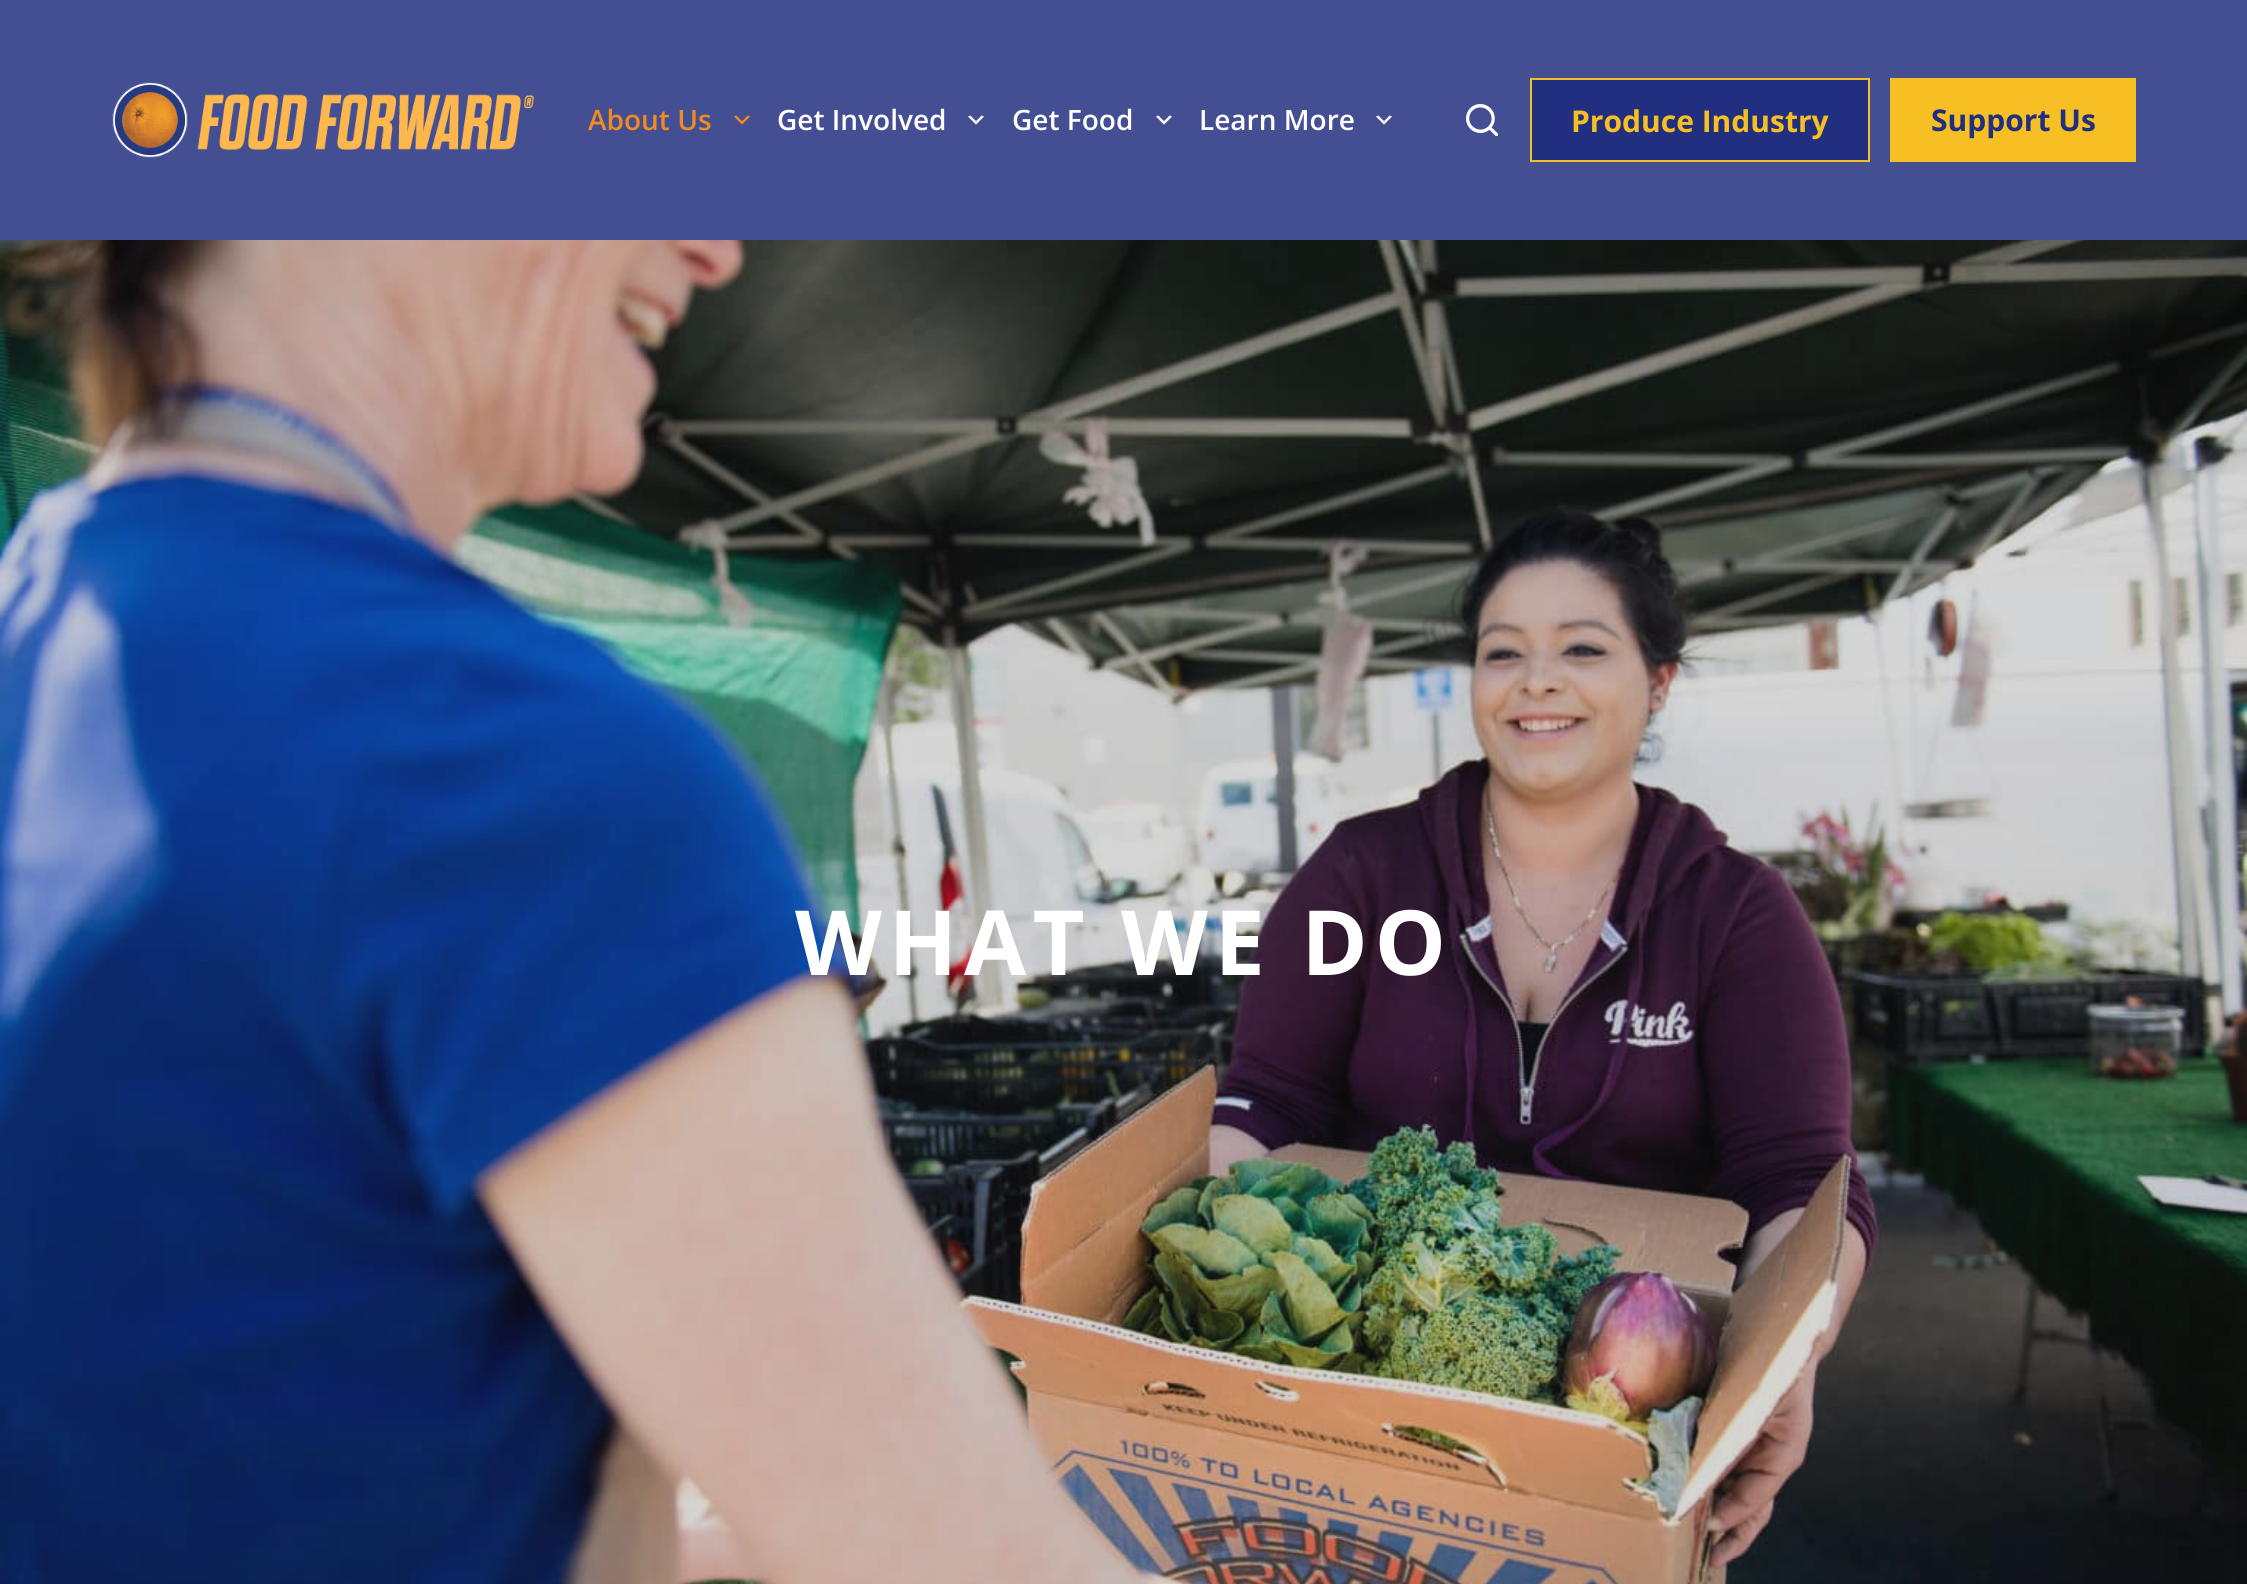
#include <cairo.h>
#include <math.h>
#include <stddef.h>


static void rgb(cairo_t *cr, int r, int g, int b)
{
	cairo_set_source_rgb(cr, r / 255.0, g / 255.0, b / 255.0);
}

static void face(cairo_t *cr, const char *family, double size, int italic, int bold)
{
	cairo_select_font_face(cr, family, italic ? CAIRO_FONT_SLANT_ITALIC : CAIRO_FONT_SLANT_NORMAL,
		bold ? CAIRO_FONT_WEIGHT_BOLD : CAIRO_FONT_WEIGHT_NORMAL);
	cairo_set_font_size(cr, size);
}

static void label(cairo_t *cr, double x, double y, const char *s)
{
	cairo_move_to(cr, x, y);
	cairo_show_text(cr, s);
}

static void tracked(cairo_t *cr, double x, double y, const char *s, double letter, double word)
{
	cairo_move_to(cr, x, y);
	while (*s) {
		char ch[5] = {0};
		int n = 0;
		do ch[n++] = *s++; while ((*s & 0xC0) == 0x80);
		cairo_show_text(cr, ch);
		cairo_rel_move_to(cr, letter + word * (*ch == ' '), 0);
	}
}

static void rect(cairo_t *cr, double x, double y, double w, double h)
{
	cairo_rectangle(cr, x, y, w, h);
	cairo_fill(cr);
}

static void image(cairo_t *cr, const char *path, double x, double y, double w, double h)
{
	cairo_surface_t *image = cairo_image_surface_create_from_png(path);
	cairo_save(cr);
	cairo_set_source_surface(cr, image, x, y);
	cairo_rectangle(cr, x, y, w, h);
	cairo_fill(cr);
	cairo_restore(cr);
	cairo_surface_destroy(image);
}

static void draw(cairo_t *cr) {
	rgb(cr, 255, 255, 255);
	cairo_paint(cr);
	rgb(cr, 67, 78, 147);
	rect(cr, 0, 0, 2247, 240);
	image(cr, "image0.png", 112, 82, 422, 76);
	face(cr, "Open Sans SemiBold", 28, 0, 0);
	rgb(cr, 240, 138, 35);
	label(cr, 588, 130, "About Us");
	image(cr, "image1.png", 734, 115, 16, 10);
	rgb(cr, 255, 255, 255);
	label(cr, 777, 130, "Get Involved");
	image(cr, "image2.png", 968, 115, 16, 10);
	label(cr, 1012, 130, "Get Food");
	image(cr, "image2.png", 1156, 115, 16, 10);
	label(cr, 1199, 130, "Learn More");
	image(cr, "image2.png", 1376, 115, 16, 10);
	image(cr, "image3.png", 1466, 104, 32, 32);
	rgb(cr, 34, 46, 127);
	cairo_rectangle(cr, 1531, 79, 338, 82);
	cairo_fill_preserve(cr);
	rgb(cr, 246, 191, 35);
	cairo_stroke(cr);
	face(cr, "Open Sans", 30, 0, 1);
	label(cr, 1571, 132, "Produce Industry");
	rect(cr, 1890, 78, 246, 84);
	rgb(cr, 34, 46, 127);
	label(cr, 1931, 131, "Support Us");
	image(cr, "image4.png", 0, 240, 2247, 1344);
	face(cr, "Open Sans", 90, 0, 1);
	rgb(cr, 255, 255, 255);
	tracked(cr, 795, 975, "WHAT WE DO", 6.5, 0);
}

int main(void) {
	cairo_surface_t *surface = cairo_image_surface_create(CAIRO_FORMAT_RGB24, 2247, 1584);
	cairo_t *cr = cairo_create(surface);
	cairo_font_options_t *options = cairo_font_options_create();
	cairo_font_options_set_hint_metrics(options, CAIRO_HINT_METRICS_OFF);
	cairo_font_options_set_hint_style(options, CAIRO_HINT_STYLE_NONE);
	cairo_set_font_options(cr, options);
	cairo_set_miter_limit(cr, 4);
	draw(cr);
	cairo_surface_write_to_png(surface, "render.png");
	cairo_font_options_destroy(options);
	cairo_destroy(cr);
	cairo_surface_destroy(surface);
	return 0;
}
